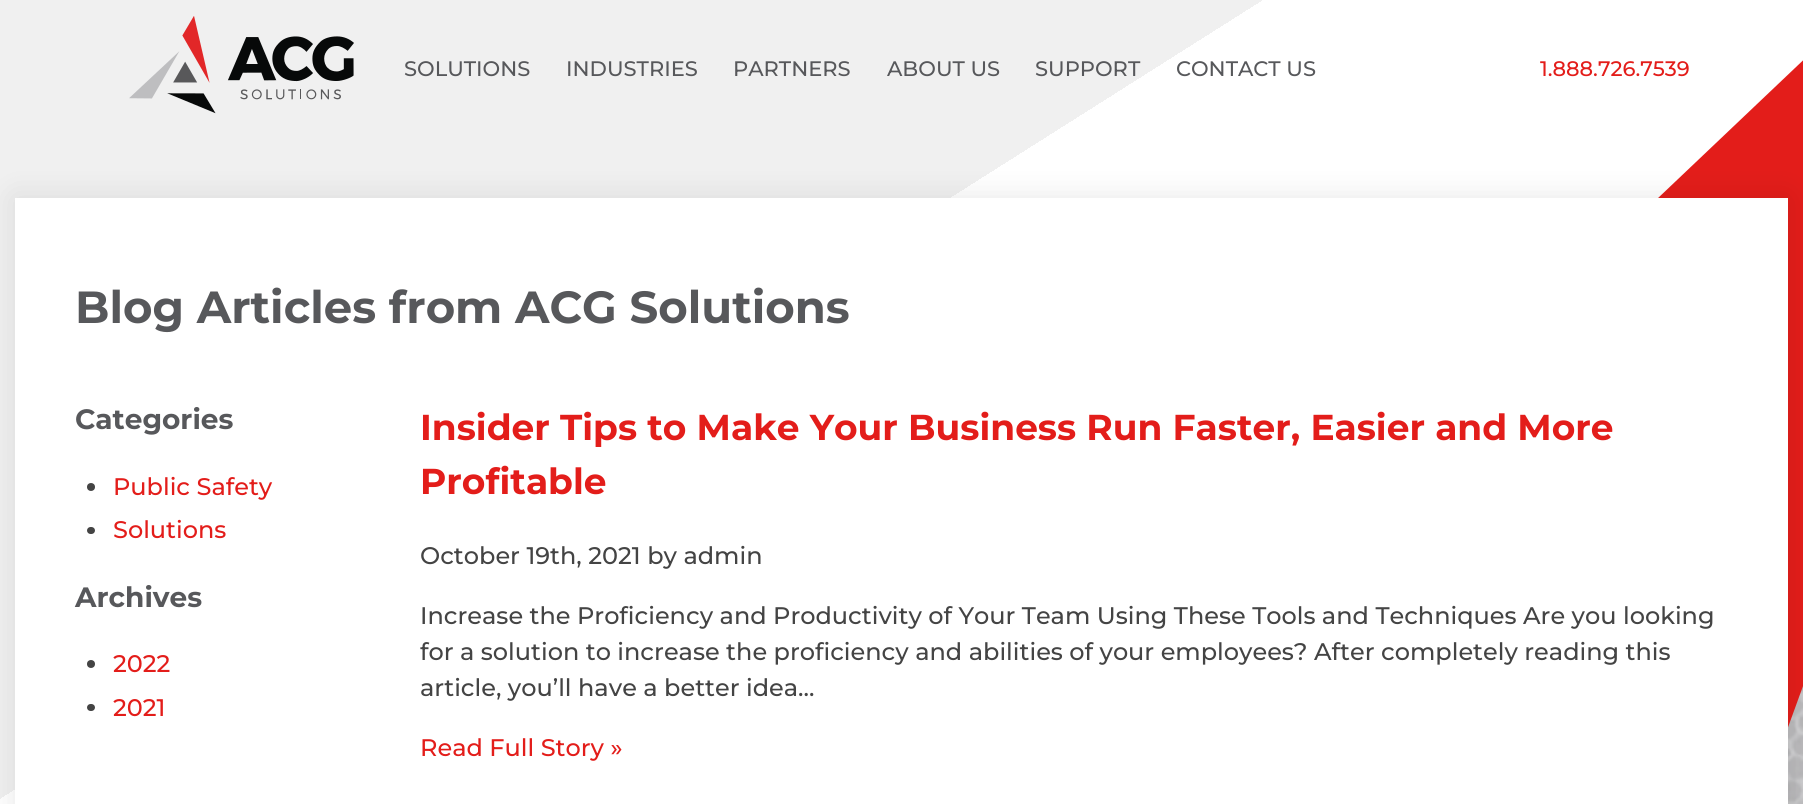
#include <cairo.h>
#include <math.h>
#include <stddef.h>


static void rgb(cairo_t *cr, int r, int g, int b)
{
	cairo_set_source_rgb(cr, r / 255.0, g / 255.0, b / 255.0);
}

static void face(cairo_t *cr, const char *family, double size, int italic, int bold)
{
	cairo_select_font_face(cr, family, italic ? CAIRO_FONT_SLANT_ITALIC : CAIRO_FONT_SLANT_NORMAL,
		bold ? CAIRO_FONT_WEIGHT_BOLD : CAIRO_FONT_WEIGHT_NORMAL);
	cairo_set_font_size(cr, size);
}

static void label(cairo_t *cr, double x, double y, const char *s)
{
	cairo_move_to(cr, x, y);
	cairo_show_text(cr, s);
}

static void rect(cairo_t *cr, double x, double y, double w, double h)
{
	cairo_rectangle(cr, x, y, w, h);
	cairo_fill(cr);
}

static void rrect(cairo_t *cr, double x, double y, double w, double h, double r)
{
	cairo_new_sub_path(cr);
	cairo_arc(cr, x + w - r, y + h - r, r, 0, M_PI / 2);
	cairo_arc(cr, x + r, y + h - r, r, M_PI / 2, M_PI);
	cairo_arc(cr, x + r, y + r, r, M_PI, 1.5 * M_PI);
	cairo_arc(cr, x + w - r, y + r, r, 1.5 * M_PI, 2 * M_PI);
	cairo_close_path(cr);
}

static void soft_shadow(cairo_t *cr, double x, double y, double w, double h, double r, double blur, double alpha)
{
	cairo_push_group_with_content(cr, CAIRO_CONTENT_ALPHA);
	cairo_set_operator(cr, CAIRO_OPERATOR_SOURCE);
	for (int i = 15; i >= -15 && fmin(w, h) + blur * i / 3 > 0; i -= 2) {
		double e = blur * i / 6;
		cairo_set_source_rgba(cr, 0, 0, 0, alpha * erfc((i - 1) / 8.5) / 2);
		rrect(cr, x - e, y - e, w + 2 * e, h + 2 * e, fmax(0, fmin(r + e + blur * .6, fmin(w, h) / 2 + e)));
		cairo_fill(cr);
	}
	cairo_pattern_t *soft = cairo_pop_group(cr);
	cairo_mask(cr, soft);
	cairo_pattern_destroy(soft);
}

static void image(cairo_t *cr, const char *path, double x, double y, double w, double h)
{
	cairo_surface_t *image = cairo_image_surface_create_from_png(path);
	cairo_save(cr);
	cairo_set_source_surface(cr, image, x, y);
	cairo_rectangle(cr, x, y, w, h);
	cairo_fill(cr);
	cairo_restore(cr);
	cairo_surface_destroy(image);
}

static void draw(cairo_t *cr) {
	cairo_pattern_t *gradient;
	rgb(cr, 255, 255, 255);
	cairo_paint(cr);
	gradient = cairo_pattern_create_linear(386, -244, 1417, 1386);
	cairo_pattern_add_color_stop_rgba(gradient, 0.35, 0.941, 0.941, 0.941, 1);
	cairo_pattern_add_color_stop_rgba(gradient, 0.35, 1, 1, 1, 1);
	cairo_set_source(cr, gradient);
	cairo_pattern_destroy(gradient);
	rect(cr, 0, 0, 1262, 799);
	image(cr, "image0.png", 1788, 686, 15, 118);
	rgb(cr, 227, 29, 26);
	cairo_new_path(cr);
	cairo_move_to(cr, 1755, 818);
	cairo_line_to(cr, 1005, 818);
	cairo_line_to(cr, 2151, -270);
	cairo_close_path(cr);
	cairo_fill(cr);
	image(cr, "image1.png", 129, 16, 225, 98);
	face(cr, "Montserrat Medium", 21, 0, 0);
	rgb(cr, 87, 88, 91);
	label(cr, 404, 76, "SOLUTIONS");
	label(cr, 566, 76, "INDUSTRIES");
	label(cr, 733, 76, "PARTNERS");
	label(cr, 887, 76, "ABOUT US");
	label(cr, 1035, 76, "SUPPORT");
	label(cr, 1176, 76, "CONTACT US");
	rgb(cr, 227, 29, 26);
	label(cr, 1540, 76, "1.888.726.7539");
	rgb(cr, 0, 0, 0);
	soft_shadow(cr, 15, 198, 1773, 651, 0, 15, 0.1);
	rgb(cr, 255, 255, 255);
	rect(cr, 15, 198, 1773, 606);
	face(cr, "Montserrat", 45, 0, 1);
	rgb(cr, 87, 88, 91);
	label(cr, 75, 323, "Blog Articles from ACG Solutions");
	face(cr, "Montserrat", 28, 0, 1);
	label(cr, 75, 429, "Categories");
	rgb(cr, 68, 68, 68);
	cairo_new_path(cr);
	cairo_arc(cr, 91, 487, 4, 0, 2 * M_PI);
	cairo_fill(cr);
	face(cr, "Montserrat Medium", 24, 0, 0);
	rgb(cr, 227, 29, 26);
	label(cr, 113, 495, "Public Safety");
	rgb(cr, 68, 68, 68);
	rrect(cr, 87, 527, 8, 7, 3.5);
	cairo_fill(cr);
	rgb(cr, 227, 29, 26);
	label(cr, 113, 538, "Solutions");
	face(cr, "Montserrat", 28, 0, 1);
	rgb(cr, 87, 88, 91);
	label(cr, 75, 607, "Archives");
	rgb(cr, 68, 68, 68);
	cairo_new_path(cr);
	cairo_arc(cr, 91, 664, 4, 0, 2 * M_PI);
	cairo_fill(cr);
	face(cr, "Montserrat Medium", 24, 0, 0);
	rgb(cr, 227, 29, 26);
	label(cr, 113, 672, "2022");
	rgb(cr, 68, 68, 68);
	rrect(cr, 87, 704, 8, 7, 3.5);
	cairo_fill(cr);
	rgb(cr, 227, 29, 26);
	label(cr, 113, 716, "2021");
	face(cr, "Montserrat", 36, 0, 1);
	label(cr, 420, 440, "Insider Tips to Make Your Business Run Faster, Easier and More");
	label(cr, 420, 494, "Profitable");
	face(cr, "Montserrat Medium", 24, 0, 0);
	rgb(cr, 68, 68, 68);
	label(cr, 420, 564, "October 19th, 2021 by admin");
	label(cr, 420, 624, "Increase the Proficiency and Productivity of Your Team Using These Tools and Techniques Are you looking");
	label(cr, 420, 660, "for a solution to increase the proficiency and abilities of your employees? After completely reading this");
	label(cr, 420, 696, "article, you’ll have a better idea...");
	rgb(cr, 227, 29, 26);
	label(cr, 420, 756, "Read Full Story »");
}

int main(void) {
	cairo_surface_t *surface = cairo_image_surface_create(CAIRO_FORMAT_RGB24, 1803, 804);
	cairo_t *cr = cairo_create(surface);
	cairo_font_options_t *options = cairo_font_options_create();
	cairo_font_options_set_hint_metrics(options, CAIRO_HINT_METRICS_OFF);
	cairo_font_options_set_hint_style(options, CAIRO_HINT_STYLE_NONE);
	cairo_set_font_options(cr, options);
	cairo_set_miter_limit(cr, 4);
	draw(cr);
	cairo_surface_write_to_png(surface, "render.png");
	cairo_font_options_destroy(options);
	cairo_destroy(cr);
	cairo_surface_destroy(surface);
	return 0;
}
